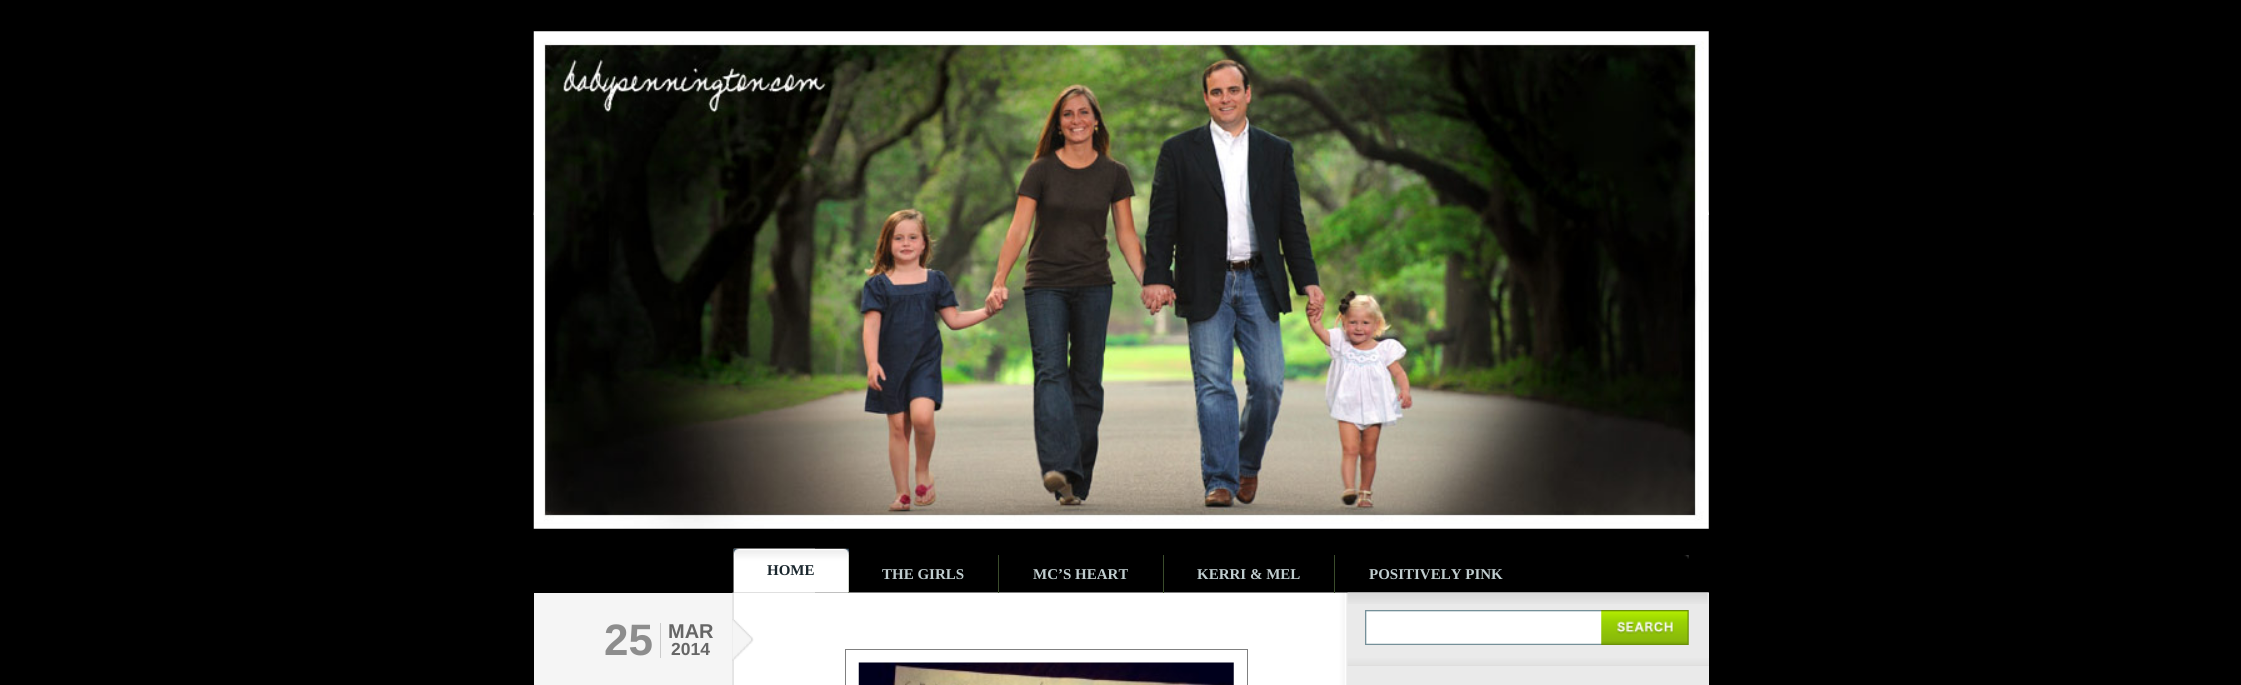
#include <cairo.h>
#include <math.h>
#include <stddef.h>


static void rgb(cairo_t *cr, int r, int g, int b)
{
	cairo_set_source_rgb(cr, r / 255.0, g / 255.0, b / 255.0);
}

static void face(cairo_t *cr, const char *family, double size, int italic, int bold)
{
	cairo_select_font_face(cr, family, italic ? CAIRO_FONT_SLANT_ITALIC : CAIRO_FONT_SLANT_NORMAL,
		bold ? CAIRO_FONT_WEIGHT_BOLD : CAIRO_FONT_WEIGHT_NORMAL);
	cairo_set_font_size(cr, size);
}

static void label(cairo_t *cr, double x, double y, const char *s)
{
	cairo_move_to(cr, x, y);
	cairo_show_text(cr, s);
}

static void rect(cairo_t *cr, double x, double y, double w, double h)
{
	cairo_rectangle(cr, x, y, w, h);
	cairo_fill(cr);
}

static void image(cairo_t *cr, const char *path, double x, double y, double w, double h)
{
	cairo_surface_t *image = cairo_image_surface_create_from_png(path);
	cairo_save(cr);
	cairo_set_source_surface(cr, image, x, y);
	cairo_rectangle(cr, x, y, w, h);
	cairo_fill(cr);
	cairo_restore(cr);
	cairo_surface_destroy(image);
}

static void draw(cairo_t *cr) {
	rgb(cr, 0, 0, 0);
	cairo_paint(cr);
	image(cr, "image0.png", 533, 210, 1176, 5);
	image(cr, "image1.png", 533, 31, 1176, 498);
	image(cr, "image2.png", 733, 555, 956, 4);
	rgb(cr, 245, 245, 245);
	rect(cr, 534, 593, 1175, 92);
	image(cr, "image5.png", 732, 592, 977, 93);
	rgb(cr, 58, 76, 43);
	rect(cr, 848, 555, 1, 38);
	image(cr, "image3.png", 733, 548, 116, 45);
	image(cr, "image4.png", 733, 548, 82, 45);
	face(cr, "Liberation Serif", 15, 0, 1);
	rgb(cr, 26, 39, 46);
	label(cr, 767, 575, "HOME");
	rgb(cr, 192, 205, 207);
	label(cr, 882, 579, "THE GIRLS");
	rgb(cr, 58, 76, 43);
	rect(cr, 998, 555, 1, 38);
	rgb(cr, 192, 205, 207);
	label(cr, 1033, 579, "MC’S HEART");
	rgb(cr, 58, 76, 43);
	rect(cr, 1163, 555, 1, 38);
	rgb(cr, 192, 205, 207);
	label(cr, 1197, 579, "KERRI & MEL");
	rgb(cr, 58, 76, 43);
	rect(cr, 1334, 555, 1, 38);
	rgb(cr, 192, 205, 207);
	label(cr, 1369, 579, "POSITIVELY PINK");
	image(cr, "image6.png", 732, 619, 22, 42);
	rgb(cr, 203, 203, 203);
	rect(cr, 660, 623, 1, 35);
	face(cr, "Liberation Sans", 44, 0, 1);
	rgb(cr, 141, 141, 141);
	label(cr, 604, 655, "25");
	face(cr, "Liberation Sans", 20, 0, 1);
	rgb(cr, 102, 102, 102);
	label(cr, 668, 638, "MAR");
	face(cr, "Liberation Sans", 17.5, 0, 1);
	label(cr, 671, 655, "2014");
	cairo_rectangle(cr, 845.5, 649.5, 402, 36);
	rgb(cr, 128, 128, 128);
	cairo_set_line_width(cr, 1);
	cairo_stroke(cr);
	image(cr, "image7.png", 858, 662, 376, 23);
	image(cr, "image8.png", 1347, 592, 362, 12);
	image(cr, "image9.png", 1365, 610, 237, 35);
	image(cr, "image10.png", 1601, 610, 88, 35);
	image(cr, "image11.png", 1347, 658, 362, 8);
}

int main(void) {
	cairo_surface_t *surface = cairo_image_surface_create(CAIRO_FORMAT_RGB24, 2241, 685);
	cairo_t *cr = cairo_create(surface);
	cairo_font_options_t *options = cairo_font_options_create();
	cairo_font_options_set_hint_metrics(options, CAIRO_HINT_METRICS_OFF);
	cairo_font_options_set_hint_style(options, CAIRO_HINT_STYLE_NONE);
	cairo_set_font_options(cr, options);
	cairo_set_miter_limit(cr, 4);
	draw(cr);
	cairo_surface_write_to_png(surface, "render.png");
	cairo_font_options_destroy(options);
	cairo_destroy(cr);
	cairo_surface_destroy(surface);
	return 0;
}
